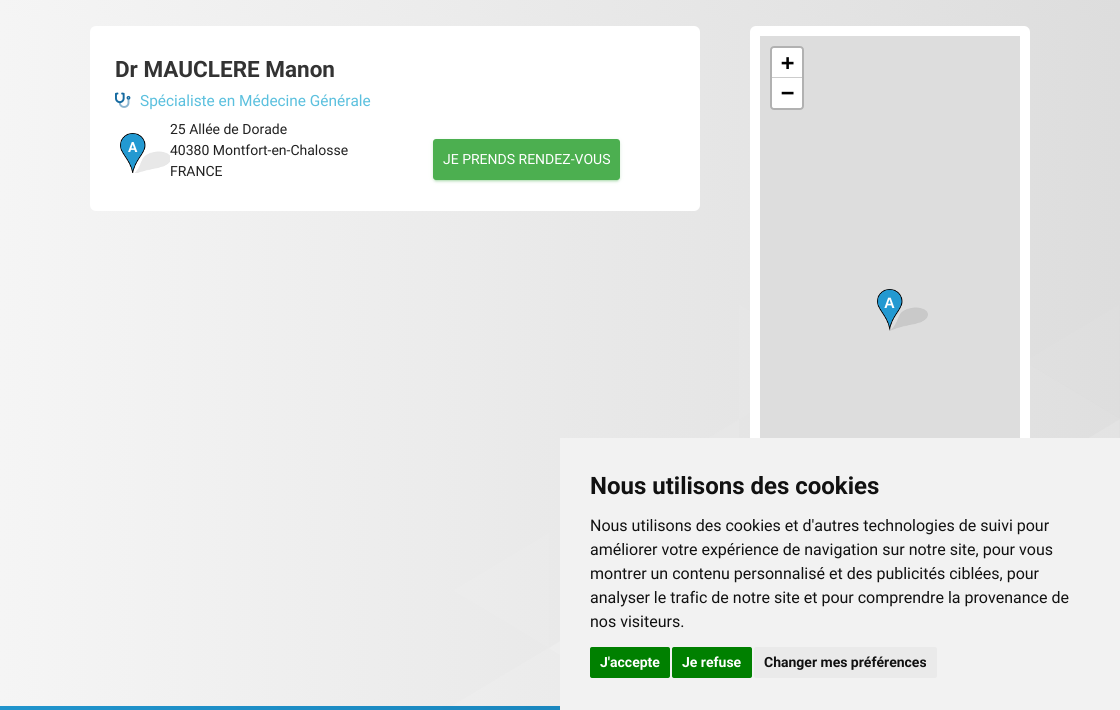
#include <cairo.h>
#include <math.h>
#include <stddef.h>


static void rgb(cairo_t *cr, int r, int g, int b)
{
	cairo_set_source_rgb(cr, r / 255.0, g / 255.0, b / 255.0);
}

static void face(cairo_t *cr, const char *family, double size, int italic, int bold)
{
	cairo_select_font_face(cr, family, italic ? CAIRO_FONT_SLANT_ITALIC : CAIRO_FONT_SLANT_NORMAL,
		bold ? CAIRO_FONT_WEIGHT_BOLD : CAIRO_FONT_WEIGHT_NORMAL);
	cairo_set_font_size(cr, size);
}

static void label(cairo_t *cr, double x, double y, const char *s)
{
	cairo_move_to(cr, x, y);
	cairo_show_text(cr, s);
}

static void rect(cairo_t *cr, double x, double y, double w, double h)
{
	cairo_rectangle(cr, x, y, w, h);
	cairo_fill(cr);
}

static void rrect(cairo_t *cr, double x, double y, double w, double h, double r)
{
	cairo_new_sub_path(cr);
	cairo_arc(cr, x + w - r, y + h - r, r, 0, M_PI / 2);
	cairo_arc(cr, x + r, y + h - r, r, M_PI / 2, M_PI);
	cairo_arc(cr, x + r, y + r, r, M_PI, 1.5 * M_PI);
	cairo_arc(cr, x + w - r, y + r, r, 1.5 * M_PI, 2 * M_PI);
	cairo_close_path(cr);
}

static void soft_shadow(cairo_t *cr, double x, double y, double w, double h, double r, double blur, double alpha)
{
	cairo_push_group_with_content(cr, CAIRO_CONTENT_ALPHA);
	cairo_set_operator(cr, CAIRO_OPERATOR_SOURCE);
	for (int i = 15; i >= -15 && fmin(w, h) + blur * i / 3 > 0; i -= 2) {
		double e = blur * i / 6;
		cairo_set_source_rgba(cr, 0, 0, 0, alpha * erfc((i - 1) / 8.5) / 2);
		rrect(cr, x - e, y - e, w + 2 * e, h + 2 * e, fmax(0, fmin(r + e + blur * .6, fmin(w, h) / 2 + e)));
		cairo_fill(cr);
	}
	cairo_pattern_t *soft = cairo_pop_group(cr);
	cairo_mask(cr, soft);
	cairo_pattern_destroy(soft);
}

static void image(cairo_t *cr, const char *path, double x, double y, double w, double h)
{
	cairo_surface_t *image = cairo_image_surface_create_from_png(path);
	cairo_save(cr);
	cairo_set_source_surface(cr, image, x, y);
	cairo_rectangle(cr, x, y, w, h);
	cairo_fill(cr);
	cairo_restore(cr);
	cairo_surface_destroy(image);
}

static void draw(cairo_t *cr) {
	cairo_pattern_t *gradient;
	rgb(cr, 255, 255, 255);
	cairo_paint(cr);
	image(cr, "image0.png", 0, 0, 1120, 706);
	rgb(cr, 255, 255, 255);
	rrect(cr, 90, 26, 610, 185, 6);
	cairo_fill(cr);
	face(cr, "Roboto", 22.5, 0, 1);
	rgb(cr, 51, 51, 51);
	label(cr, 115, 77, "Dr MAUCLERE Manon");
	image(cr, "image1.png", 115, 92, 16, 12);
	image(cr, "image2.png", 118, 99, 12, 9);
	face(cr, "Roboto", 15.4, 0, 0);
	rgb(cr, 91, 192, 222);
	label(cr, 140, 106, "Spécialiste en Médecine Générale");
	face(cr, "Roboto", 14, 0, 0);
	rgb(cr, 33, 33, 33);
	label(cr, 170, 134, "25 Allée de Dorade");
	image(cr, "image3.png", 120, 133, 50, 40);
	face(cr, "Roboto", 14, 0, 1);
	rgb(cr, 255, 255, 255);
	label(cr, 128, 152, "A");
	face(cr, "Roboto", 14, 0, 0);
	rgb(cr, 33, 33, 33);
	label(cr, 170, 155, "40380 Montfort-en-Chalosse");
	label(cr, 170, 176, "FRANCE");
	rgb(cr, 76, 175, 80);
	soft_shadow(cr, 433, 140, 187, 41, 3, 2.5, 0.12);
	soft_shadow(cr, 435, 144, 183, 37, 1, 0.5, 0.2);
	soft_shadow(cr, 433, 141, 187, 41, 3, 1, 0.14);
	rgb(cr, 76, 175, 80);
	rrect(cr, 433, 139, 187, 41, 3);
	cairo_fill(cr);
	rgb(cr, 255, 255, 255);
	label(cr, 443, 164, "JE PRENDS RENDEZ-VOUS");
	rrect(cr, 750, 26, 280, 620, 6);
	cairo_fill(cr);
	rgb(cr, 221, 221, 221);
	rect(cr, 760, 36, 260, 402);
	rrect(cr, 771, 47, 32, 62, 3);
	rgb(cr, 177, 177, 177);
	cairo_stroke(cr);
	rgb(cr, 255, 255, 255);
	cairo_new_path(cr);
	cairo_move_to(cr, 774, 48);
	cairo_line_to(cr, 800, 48);
	cairo_curve_to(cr, 801, 48, 802, 49, 802, 50);
	cairo_line_to(cr, 802, 78);
	cairo_line_to(cr, 772, 78);
	cairo_line_to(cr, 772, 50);
	cairo_curve_to(cr, 772, 49, 773, 48, 774, 48);
	cairo_close_path(cr);
	cairo_fill(cr);
	rgb(cr, 204, 204, 204);
	rect(cr, 772, 77, 30, 1);
	face(cr, "DejaVu Sans Mono", 22, 0, 1);
	rgb(cr, 0, 0, 0);
	label(cr, 781, 70, "+");
	rgb(cr, 255, 255, 255);
	cairo_new_path(cr);
	cairo_move_to(cr, 772, 78);
	cairo_line_to(cr, 802, 78);
	cairo_line_to(cr, 802, 106);
	cairo_curve_to(cr, 802, 107, 801, 108, 800, 108);
	cairo_line_to(cr, 774, 108);
	cairo_curve_to(cr, 773, 108, 772, 107, 772, 106);
	cairo_close_path(cr);
	cairo_fill(cr);
	rgb(cr, 0, 0, 0);
	label(cr, 781, 100, "−");
	image(cr, "image4.png", 877, 289, 51, 42);
	face(cr, "Liberation Sans", 15, 0, 1);
	rgb(cr, 255, 255, 255);
	label(cr, 884, 308, "A");
	rgb(cr, 242, 242, 242);
	rect(cr, 560, 438, 560, 272);
	face(cr, "Roboto", 24, 0, 1);
	rgb(cr, 17, 17, 17);
	label(cr, 590, 494, "Nous utilisons des cookies");
	face(cr, "Roboto", 16, 0, 0);
	label(cr, 590, 531, "Nous utilisons des cookies et d'autres technologies de suivi pour");
	label(cr, 590, 555, "améliorer votre expérience de navigation sur notre site, pour vous");
	label(cr, 590, 579, "montrer un contenu personnalisé et des publicités ciblées, pour");
	label(cr, 590, 603, "analyser le trafic de notre site et pour comprendre la provenance de");
	label(cr, 590, 627, "nos visiteurs.");
	rgb(cr, 0, 128, 0);
	rrect(cr, 590, 647, 80, 31, 2);
	cairo_fill(cr);
	face(cr, "Roboto", 14, 0, 1);
	rgb(cr, 255, 255, 255);
	label(cr, 600, 667, "J'accepte");
	rgb(cr, 0, 128, 0);
	rrect(cr, 672, 647, 80, 31, 2);
	cairo_fill(cr);
	rgb(cr, 255, 255, 255);
	label(cr, 682, 667, "Je refuse");
	rgb(cr, 234, 234, 234);
	rrect(cr, 754, 647, 183, 31, 2);
	cairo_fill(cr);
	rgb(cr, 17, 17, 17);
	label(cr, 764, 667, "Changer mes préférences");
	gradient = cairo_pattern_create_linear(65, 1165, 1055, 594);
	cairo_pattern_add_color_stop_rgba(gradient, 0, 0.137, 0.6, 0.82, 1);
	cairo_pattern_add_color_stop_rgba(gradient, 1, 0.075, 0.475, 0.694, 1);
	cairo_set_source(cr, gradient);
	cairo_pattern_destroy(gradient);
	rect(cr, 0, 706, 560, 4);
}

int main(void) {
	cairo_surface_t *surface = cairo_image_surface_create(CAIRO_FORMAT_RGB24, 1120, 710);
	cairo_t *cr = cairo_create(surface);
	cairo_font_options_t *options = cairo_font_options_create();
	cairo_font_options_set_hint_metrics(options, CAIRO_HINT_METRICS_OFF);
	cairo_font_options_set_hint_style(options, CAIRO_HINT_STYLE_NONE);
	cairo_set_font_options(cr, options);
	cairo_set_miter_limit(cr, 4);
	draw(cr);
	cairo_surface_write_to_png(surface, "render.png");
	cairo_font_options_destroy(options);
	cairo_destroy(cr);
	cairo_surface_destroy(surface);
	return 0;
}
